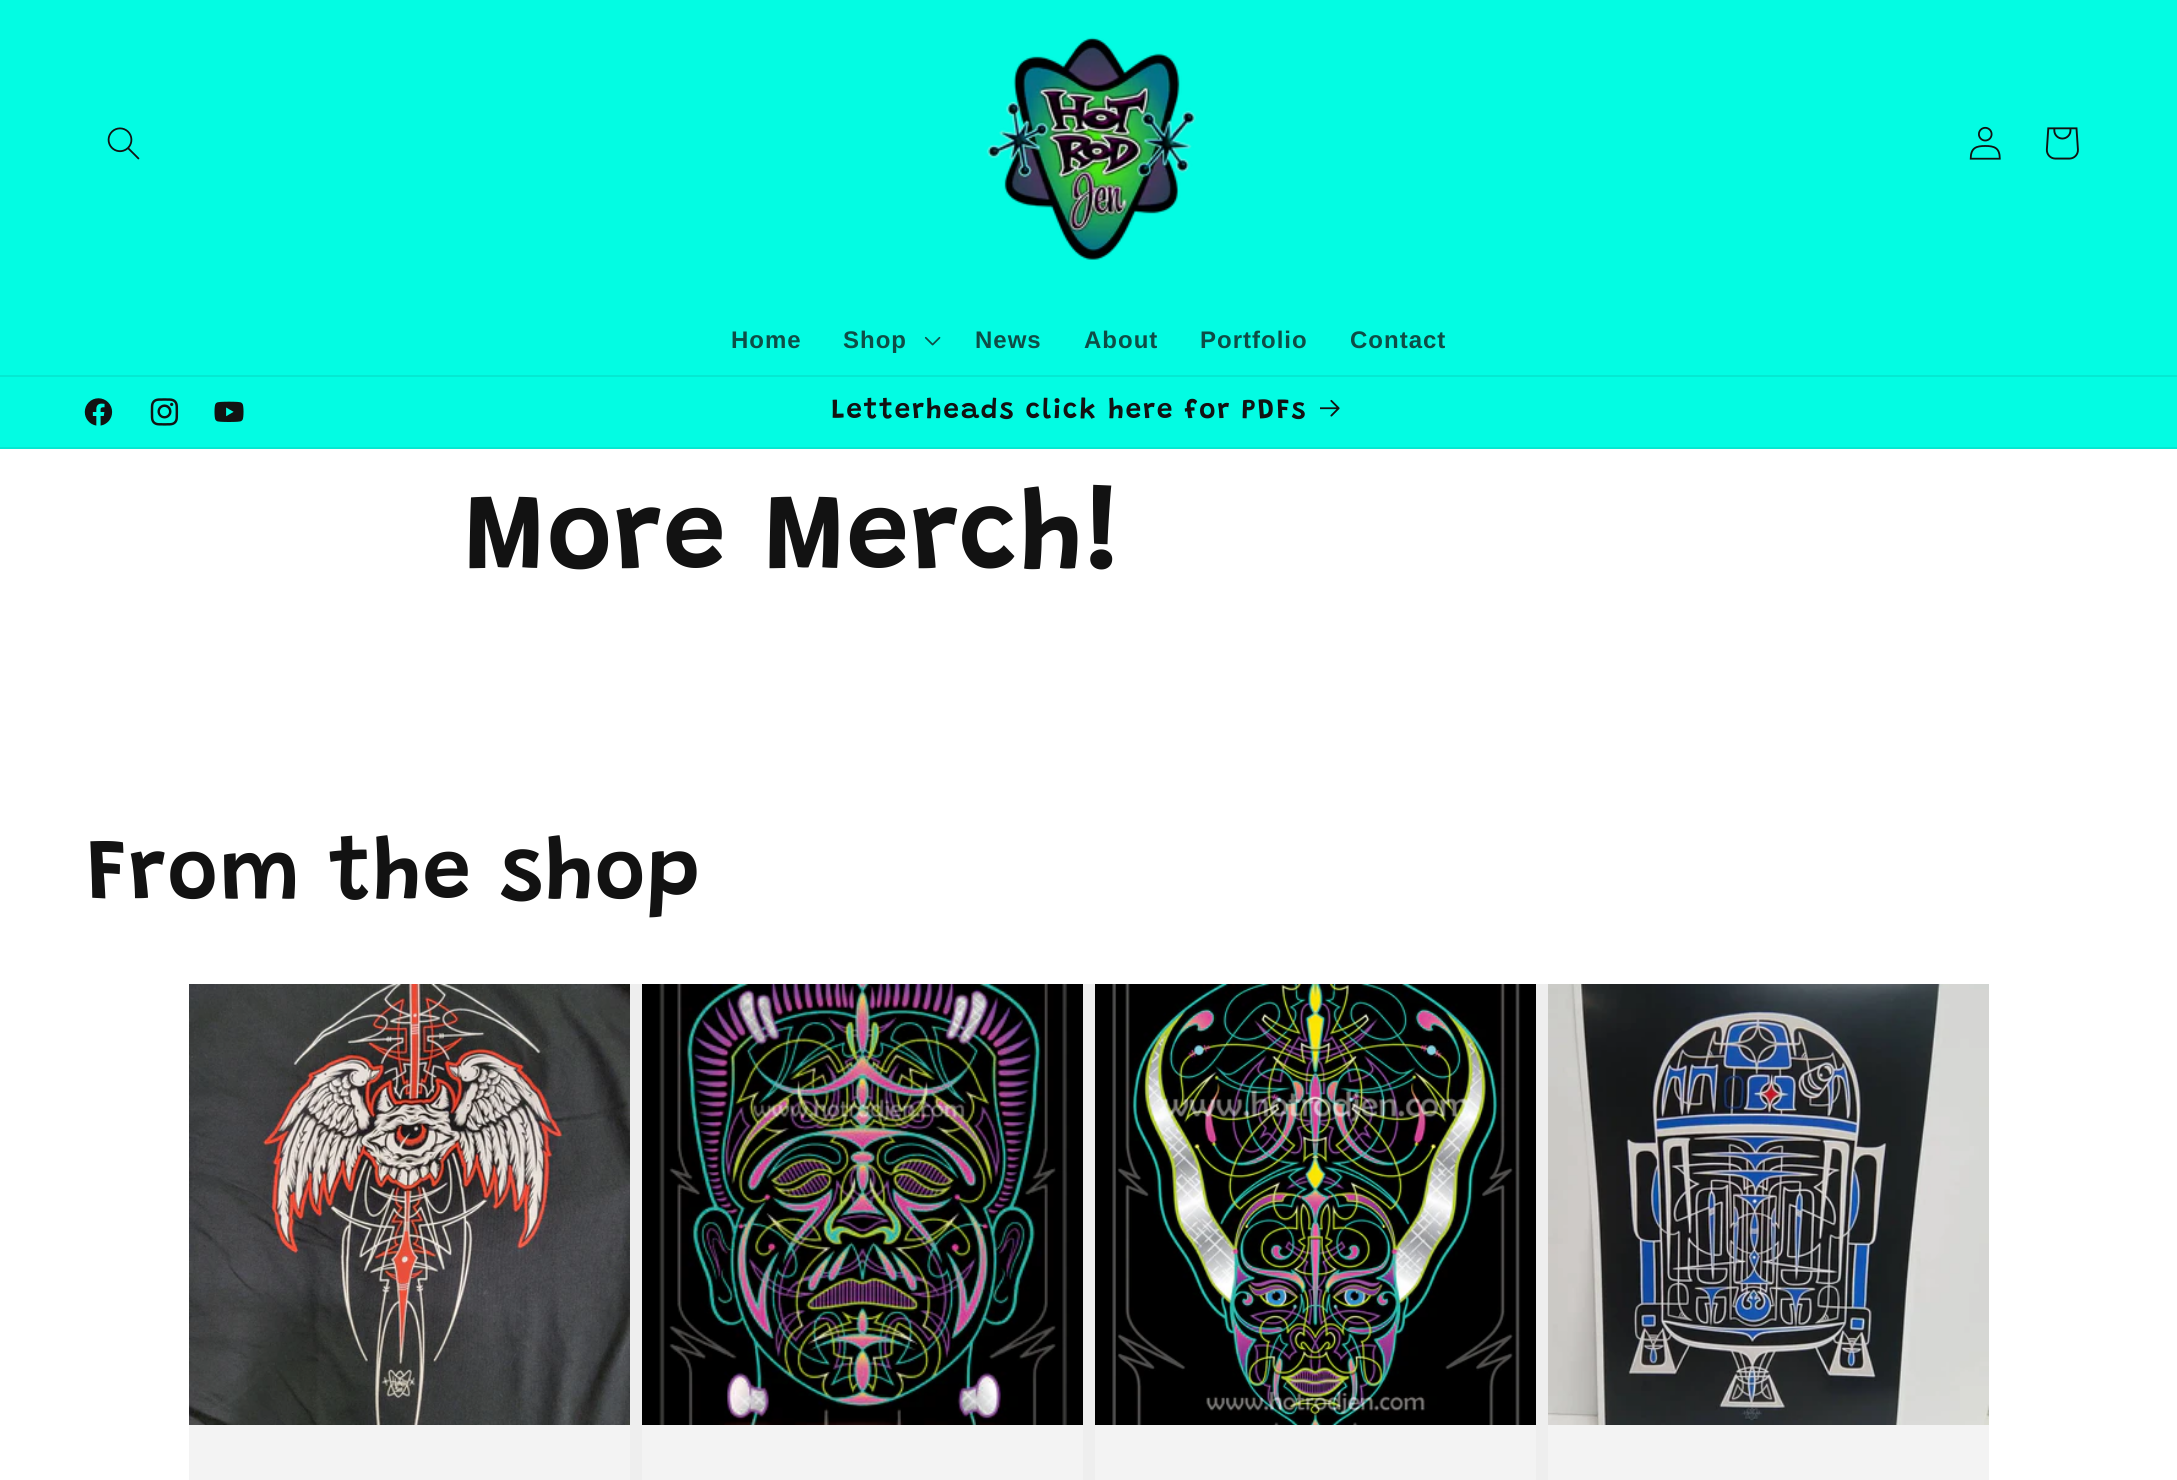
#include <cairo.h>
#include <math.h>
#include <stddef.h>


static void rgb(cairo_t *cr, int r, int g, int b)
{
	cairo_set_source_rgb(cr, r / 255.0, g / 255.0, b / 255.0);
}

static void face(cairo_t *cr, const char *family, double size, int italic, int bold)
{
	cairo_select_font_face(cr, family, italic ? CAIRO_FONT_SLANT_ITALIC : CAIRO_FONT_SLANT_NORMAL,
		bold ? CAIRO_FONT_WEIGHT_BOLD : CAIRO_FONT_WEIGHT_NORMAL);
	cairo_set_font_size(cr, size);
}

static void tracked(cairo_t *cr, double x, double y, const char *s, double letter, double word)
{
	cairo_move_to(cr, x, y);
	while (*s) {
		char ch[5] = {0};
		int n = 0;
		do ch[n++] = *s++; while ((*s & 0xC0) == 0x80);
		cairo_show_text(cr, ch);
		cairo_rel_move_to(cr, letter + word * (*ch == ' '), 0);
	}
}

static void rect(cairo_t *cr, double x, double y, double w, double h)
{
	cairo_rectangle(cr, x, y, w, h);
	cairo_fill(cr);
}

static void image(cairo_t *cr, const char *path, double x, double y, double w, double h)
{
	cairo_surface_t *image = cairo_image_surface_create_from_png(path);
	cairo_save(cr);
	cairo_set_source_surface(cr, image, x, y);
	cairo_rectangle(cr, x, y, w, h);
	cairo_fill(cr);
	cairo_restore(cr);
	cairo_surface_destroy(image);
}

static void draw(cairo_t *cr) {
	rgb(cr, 255, 255, 255);
	cairo_paint(cr);
	rgb(cr, 3, 252, 227);
	rect(cr, 0, 0, 2177, 375);
	rgb(cr, 4, 233, 210);
	rect(cr, 0, 375, 2177, 2);
	image(cr, "image0.png", 107, 127, 33, 33);
	image(cr, "image1.png", 986, 37, 210, 223);
	image(cr, "image2.png", 1969, 126, 32, 34);
	image(cr, "image3.png", 2045, 127, 34, 33);
	face(cr, "Liberation Sans", 24, 0, 1);
	rgb(cr, 14, 77, 70);
	tracked(cr, 731, 348, "Home", 1, 0);
	tracked(cr, 843, 348, "Shop", 1, 0);
	image(cr, "image4.png", 924, 336, 17, 10);
	tracked(cr, 975, 348, "News", 1, 0);
	tracked(cr, 1084, 348, "About", 1, 0);
	tracked(cr, 1200, 348, "Portfolio", 1, 0);
	tracked(cr, 1350, 348, "Contact", 1, 0);
	rgb(cr, 3, 252, 227);
	rect(cr, 0, 377, 2177, 70);
	rgb(cr, 4, 233, 210);
	rect(cr, 0, 447, 2177, 2);
	image(cr, "image5.png", 84, 398, 29, 28);
	image(cr, "image6.png", 150, 398, 29, 28);
	image(cr, "image7.png", 214, 401, 30, 21);
	face(cr, "Grandstander SemiBold", 28.25, 0, 0);
	rgb(cr, 18, 18, 18);
	tracked(cr, 831, 418, "Letterheads click here for PDFs", 1.75, 0);
	image(cr, "image8.png", 1320, 399, 20, 18);
	face(cr, "Grandstander SemiBold", 113, 0, 0);
	tracked(cr, 463, 568, "More Merch!", 1.25, 0);
	face(cr, "Grandstander SemiBold", 87, 0, 0);
	tracked(cr, 86, 898, "From the shop", 1.25, 0);
	rgb(cr, 238, 238, 238);
	rect(cr, 630, 984, 918, 496);
	rgb(cr, 243, 243, 243);
	rect(cr, 189, 1425, 441, 55);
	image(cr, "image9.png", 189, 984, 441, 441);
	rect(cr, 642, 1425, 441, 55);
	image(cr, "image10.png", 642, 984, 441, 441);
	rect(cr, 1095, 1425, 441, 55);
	image(cr, "image11.png", 1095, 984, 441, 441);
	rect(cr, 1548, 1425, 441, 55);
	image(cr, "image12.png", 1548, 984, 441, 441);
}

int main(void) {
	cairo_surface_t *surface = cairo_image_surface_create(CAIRO_FORMAT_RGB24, 2177, 1480);
	cairo_t *cr = cairo_create(surface);
	cairo_font_options_t *options = cairo_font_options_create();
	cairo_font_options_set_hint_metrics(options, CAIRO_HINT_METRICS_OFF);
	cairo_font_options_set_hint_style(options, CAIRO_HINT_STYLE_NONE);
	cairo_set_font_options(cr, options);
	cairo_set_miter_limit(cr, 4);
	draw(cr);
	cairo_surface_write_to_png(surface, "render.png");
	cairo_font_options_destroy(options);
	cairo_destroy(cr);
	cairo_surface_destroy(surface);
	return 0;
}
